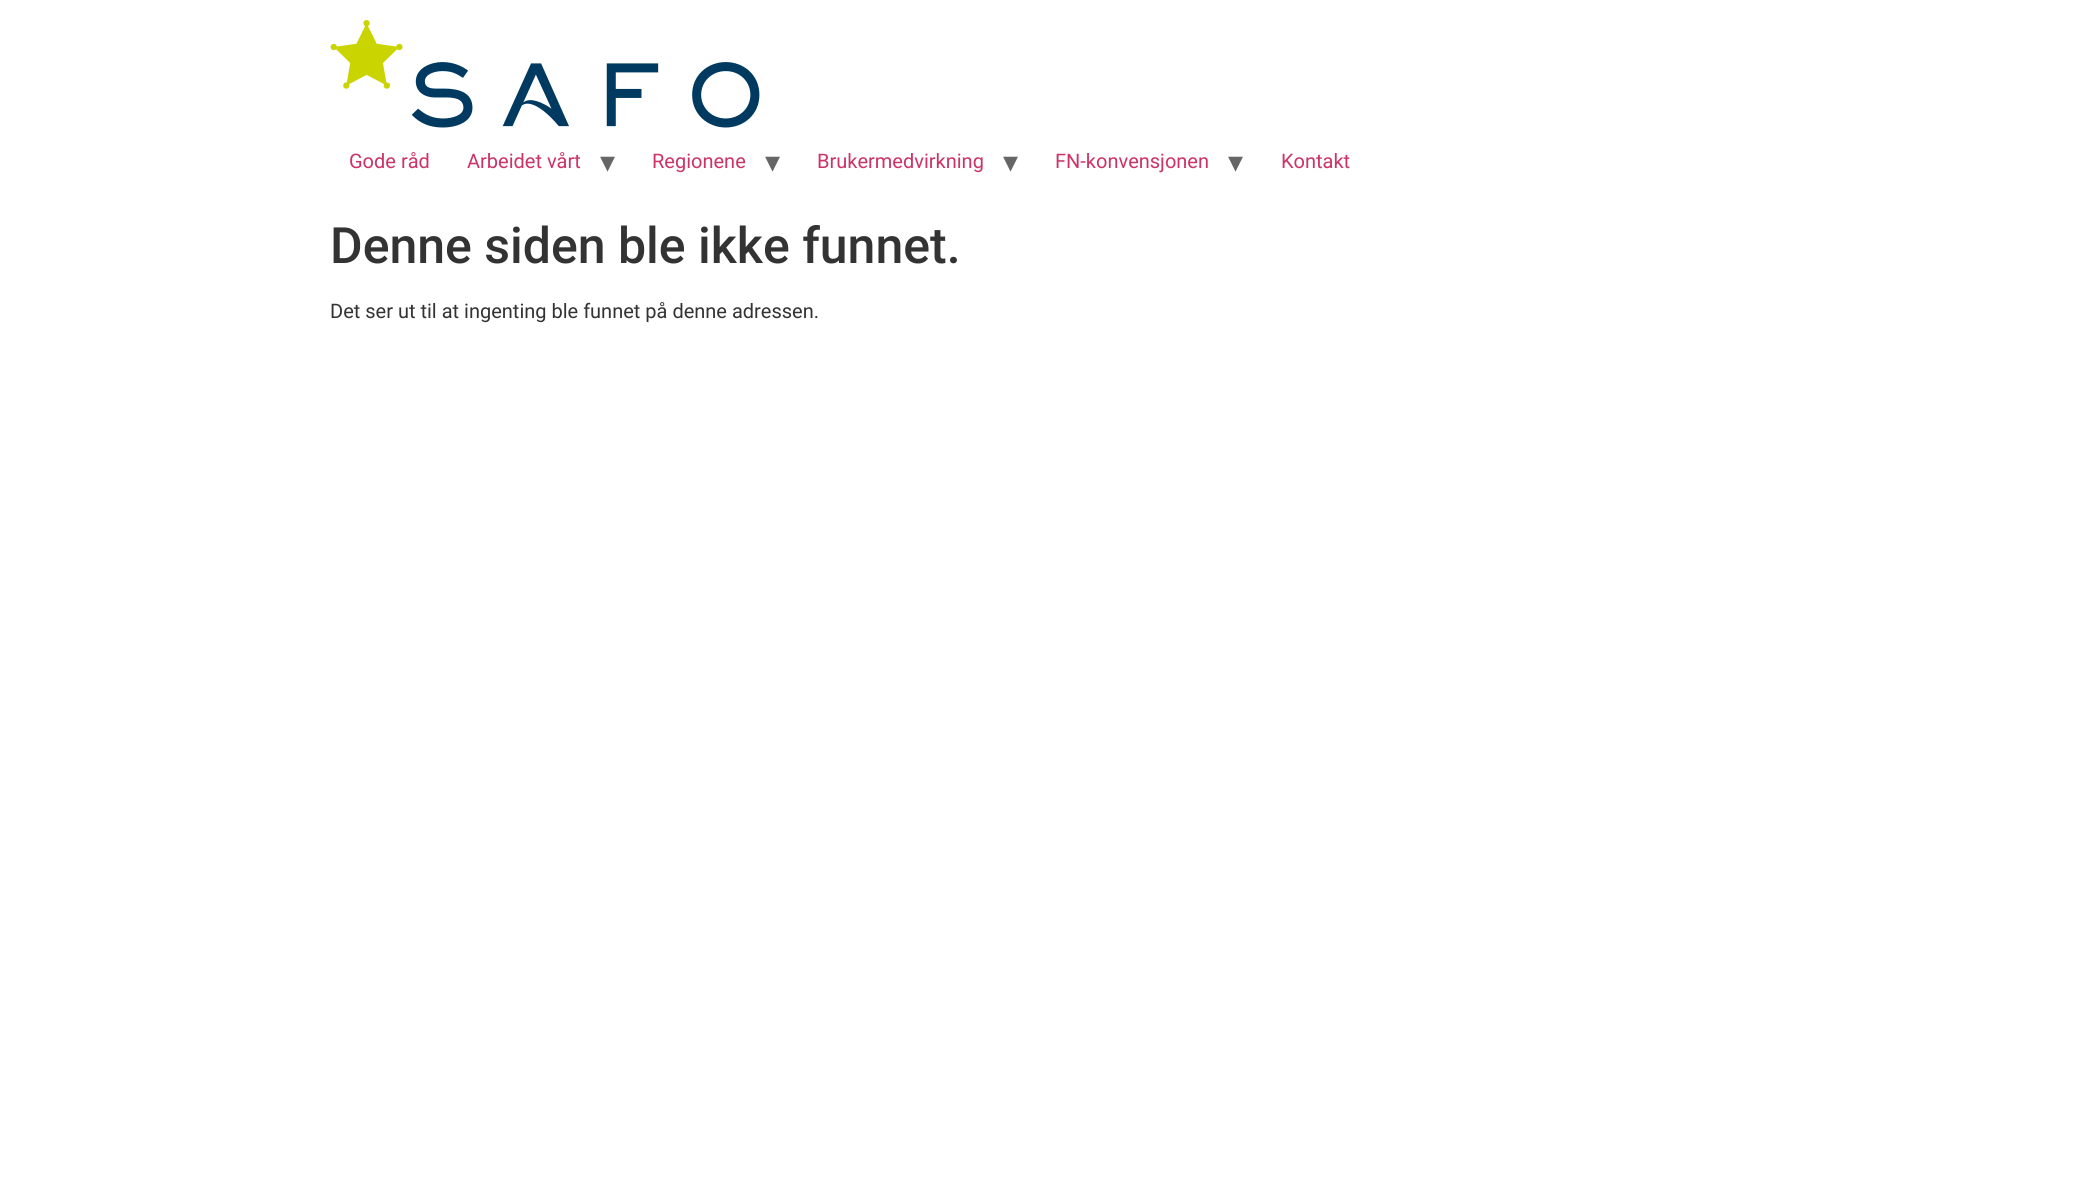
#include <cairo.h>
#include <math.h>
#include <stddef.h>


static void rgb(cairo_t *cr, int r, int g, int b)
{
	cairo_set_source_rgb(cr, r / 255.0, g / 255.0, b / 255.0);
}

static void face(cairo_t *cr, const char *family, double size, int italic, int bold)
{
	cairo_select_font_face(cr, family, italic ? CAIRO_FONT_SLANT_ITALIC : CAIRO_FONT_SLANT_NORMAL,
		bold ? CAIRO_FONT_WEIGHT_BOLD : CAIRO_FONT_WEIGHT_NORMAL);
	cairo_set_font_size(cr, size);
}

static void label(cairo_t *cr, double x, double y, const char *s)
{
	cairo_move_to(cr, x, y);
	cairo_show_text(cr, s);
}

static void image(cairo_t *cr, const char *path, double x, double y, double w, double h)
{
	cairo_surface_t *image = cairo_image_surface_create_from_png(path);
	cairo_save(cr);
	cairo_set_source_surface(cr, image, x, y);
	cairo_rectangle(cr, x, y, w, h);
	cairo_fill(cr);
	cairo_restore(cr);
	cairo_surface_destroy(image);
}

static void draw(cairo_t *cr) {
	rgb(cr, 255, 255, 255);
	cairo_paint(cr);
	image(cr, "image0.png", 330, 20, 430, 108);
	face(cr, "Roboto", 20, 0, 0);
	rgb(cr, 204, 51, 102);
	label(cr, 349, 168, "Gode råd");
	label(cr, 467, 168, "Arbeidet vårt");
	face(cr, "DejaVu Sans", 30, 0, 0);
	rgb(cr, 102, 102, 102);
	label(cr, 600, 172, "▾");
	face(cr, "Roboto", 20, 0, 0);
	rgb(cr, 204, 51, 102);
	label(cr, 652, 168, "Regionene");
	face(cr, "DejaVu Sans", 30, 0, 0);
	rgb(cr, 102, 102, 102);
	label(cr, 765, 172, "▾");
	face(cr, "Roboto", 20, 0, 0);
	rgb(cr, 204, 51, 102);
	label(cr, 817, 168, "Brukermedvirkning");
	face(cr, "DejaVu Sans", 30, 0, 0);
	rgb(cr, 102, 102, 102);
	label(cr, 1003, 172, "▾");
	face(cr, "Roboto", 20, 0, 0);
	rgb(cr, 204, 51, 102);
	label(cr, 1055, 168, "FN-konvensjonen");
	face(cr, "DejaVu Sans", 30, 0, 0);
	rgb(cr, 102, 102, 102);
	label(cr, 1228, 172, "▾");
	face(cr, "Roboto", 20, 0, 0);
	rgb(cr, 204, 51, 102);
	label(cr, 1281, 168, "Kontakt");
	face(cr, "Roboto Medium", 50, 0, 0);
	rgb(cr, 51, 51, 51);
	label(cr, 330, 263, "Denne siden ble ikke funnet.");
	face(cr, "Roboto", 20, 0, 0);
	label(cr, 330, 318, "Det ser ut til at ingenting ble funnet på denne adressen.");
}

int main(void) {
	cairo_surface_t *surface = cairo_image_surface_create(CAIRO_FORMAT_RGB24, 2085, 1192);
	cairo_t *cr = cairo_create(surface);
	cairo_font_options_t *options = cairo_font_options_create();
	cairo_font_options_set_hint_metrics(options, CAIRO_HINT_METRICS_OFF);
	cairo_font_options_set_hint_style(options, CAIRO_HINT_STYLE_NONE);
	cairo_set_font_options(cr, options);
	cairo_set_miter_limit(cr, 4);
	draw(cr);
	cairo_surface_write_to_png(surface, "render.png");
	cairo_font_options_destroy(options);
	cairo_destroy(cr);
	cairo_surface_destroy(surface);
	return 0;
}
